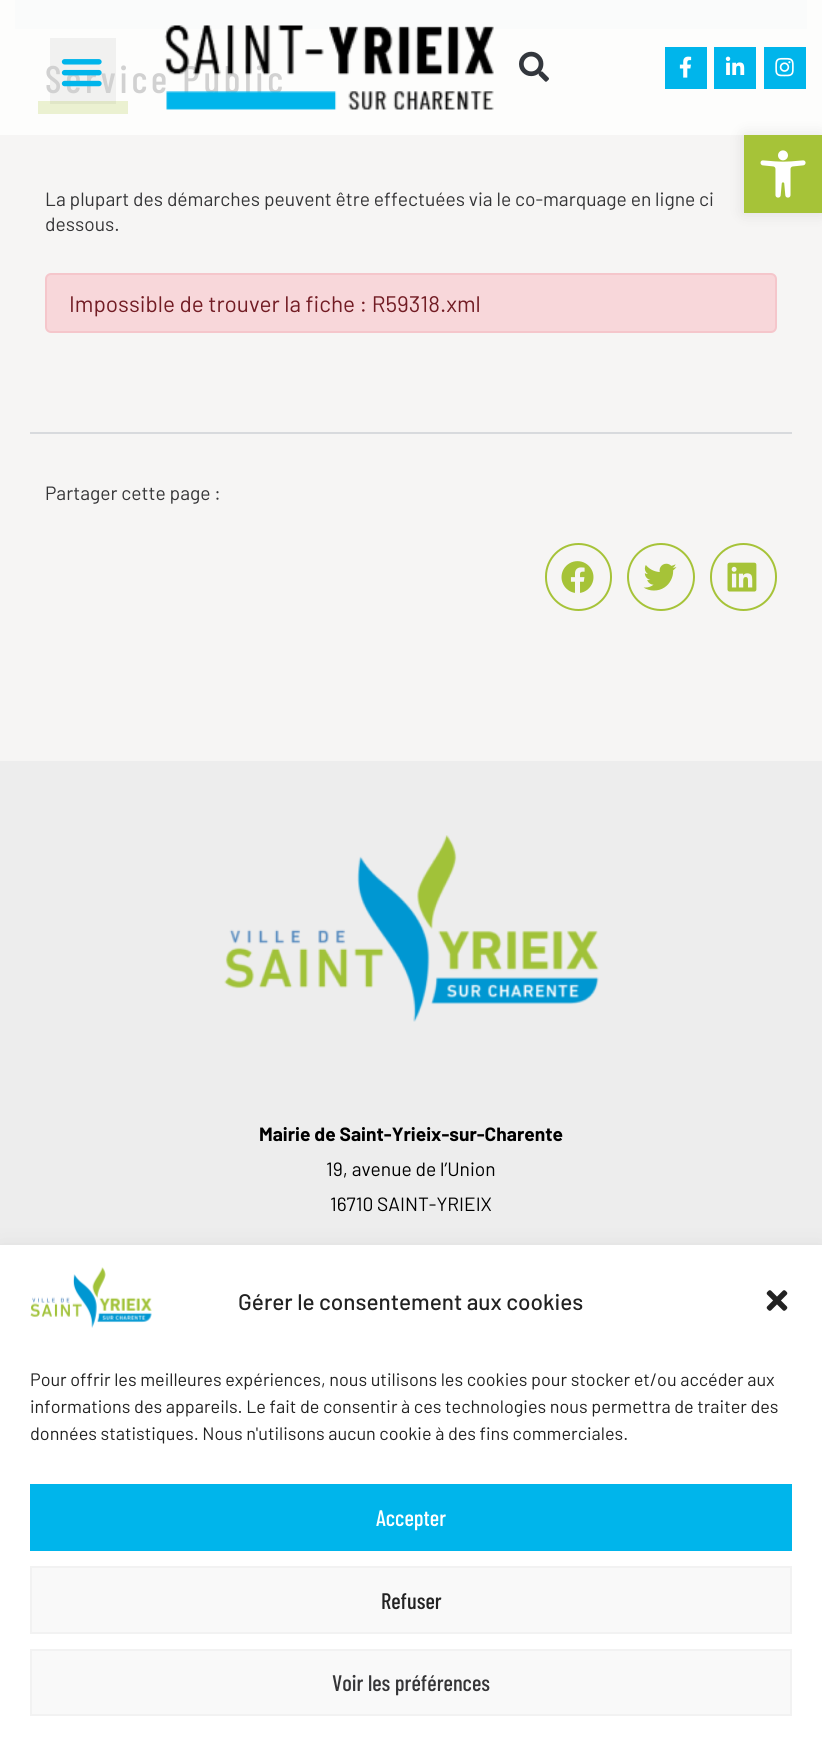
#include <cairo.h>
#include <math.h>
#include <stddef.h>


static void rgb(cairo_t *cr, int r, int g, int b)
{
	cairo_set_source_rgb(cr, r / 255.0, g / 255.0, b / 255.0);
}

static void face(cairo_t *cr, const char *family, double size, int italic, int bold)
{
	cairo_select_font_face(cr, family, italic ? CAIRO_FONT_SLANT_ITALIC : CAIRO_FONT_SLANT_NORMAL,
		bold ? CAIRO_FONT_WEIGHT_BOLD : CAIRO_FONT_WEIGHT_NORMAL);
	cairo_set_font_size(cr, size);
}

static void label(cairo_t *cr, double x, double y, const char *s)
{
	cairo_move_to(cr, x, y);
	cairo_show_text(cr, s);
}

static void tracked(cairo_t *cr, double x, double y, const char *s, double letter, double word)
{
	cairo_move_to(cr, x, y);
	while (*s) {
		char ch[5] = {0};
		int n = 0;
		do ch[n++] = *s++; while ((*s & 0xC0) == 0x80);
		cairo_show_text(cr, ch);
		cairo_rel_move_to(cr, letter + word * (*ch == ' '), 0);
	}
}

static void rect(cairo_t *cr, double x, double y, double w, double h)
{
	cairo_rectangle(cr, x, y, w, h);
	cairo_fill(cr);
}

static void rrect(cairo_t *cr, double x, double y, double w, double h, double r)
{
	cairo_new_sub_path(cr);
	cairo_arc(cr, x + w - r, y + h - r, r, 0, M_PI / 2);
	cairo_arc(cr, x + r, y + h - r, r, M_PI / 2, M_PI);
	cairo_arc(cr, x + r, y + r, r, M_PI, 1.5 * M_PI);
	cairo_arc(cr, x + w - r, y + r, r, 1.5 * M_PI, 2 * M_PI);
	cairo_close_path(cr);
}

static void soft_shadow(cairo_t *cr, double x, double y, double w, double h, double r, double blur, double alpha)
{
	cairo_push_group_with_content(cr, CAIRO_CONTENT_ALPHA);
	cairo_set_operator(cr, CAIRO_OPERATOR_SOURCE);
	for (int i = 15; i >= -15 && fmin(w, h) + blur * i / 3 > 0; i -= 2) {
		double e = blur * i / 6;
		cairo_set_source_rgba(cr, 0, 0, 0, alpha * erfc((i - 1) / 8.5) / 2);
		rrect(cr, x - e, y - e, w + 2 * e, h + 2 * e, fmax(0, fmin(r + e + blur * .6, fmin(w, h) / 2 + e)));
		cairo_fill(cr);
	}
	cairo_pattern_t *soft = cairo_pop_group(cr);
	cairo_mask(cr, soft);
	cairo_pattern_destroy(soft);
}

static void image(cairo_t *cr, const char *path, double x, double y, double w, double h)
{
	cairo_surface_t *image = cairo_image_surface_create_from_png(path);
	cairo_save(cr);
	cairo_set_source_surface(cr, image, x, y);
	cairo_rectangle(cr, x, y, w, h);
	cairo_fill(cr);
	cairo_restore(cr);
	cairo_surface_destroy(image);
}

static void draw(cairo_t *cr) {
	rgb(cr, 246, 245, 244);
	cairo_paint(cr);
	rgb(cr, 253, 253, 252);
	rect(cr, 0, 0, 822, 135);
	rgb(cr, 235, 241, 209);
	rect(cr, 38, 101, 90, 13);
	cairo_set_source_rgba(cr, 0, 0, 0, 0.05);
	rect(cr, 50, 38, 66, 66);
	face(cr, "Barlow Condensed Medium", 38.5, 0, 0);
	rgb(cr, 209, 209, 209);
	tracked(cr, 45, 93, "Service Public", 3.75, 0);
	image(cr, "image0.png", 61, 59, 41, 28);
	rgb(cr, 250, 251, 251);
	rect(cr, 15, 0, 792, 29);
	image(cr, "image1.png", 164, 25, 330, 85);
	image(cr, "image2.png", 519, 51, 30, 31);
	rgb(cr, 0, 181, 235);
	rect(cr, 665, 47, 42, 42);
	image(cr, "image3.png", 679, 56, 13, 22);
	rect(cr, 714, 47, 42, 42);
	image(cr, "image4.png", 725, 56, 20, 19);
	rect(cr, 764, 47, 42, 42);
	image(cr, "image5.png", 775, 57, 19, 20);
	face(cr, "Barlow", 19.2, 0, 0);
	rgb(cr, 53, 53, 55);
	label(cr, 45, 206, "La plupart des démarches peuvent être effectuées via le co-marquage en ligne ci");
	label(cr, 45, 231, "dessous.");
	rgb(cr, 248, 215, 218);
	rrect(cr, 46, 274, 730, 58, 5);
	cairo_fill_preserve(cr);
	rgb(cr, 245, 198, 203);
	cairo_stroke(cr);
	face(cr, "Barlow", 22.5, 0, 0);
	rgb(cr, 114, 28, 36);
	label(cr, 69, 312, "Impossible de trouver la fiche : R59318.xml");
	rgb(cr, 216, 218, 221);
	rect(cr, 30, 432, 762, 2);
	face(cr, "Barlow", 19.2, 0, 0);
	rgb(cr, 53, 53, 55);
	label(cr, 45, 500, "Partager cette page :");
	rrect(cr, 546, 544, 65, 66, 32.5);
	rgb(cr, 166, 195, 56);
	cairo_stroke(cr);
	image(cr, "image6.png", 561, 561, 33, 32);
	cairo_arc(cr, 661, 577, 33, 0, 2 * M_PI);
	cairo_stroke(cr);
	image(cr, "image7.png", 643, 563, 34, 28);
	rrect(cr, 711, 544, 65, 66, 32.5);
	cairo_stroke(cr);
	image(cr, "image8.png", 727, 562, 30, 30);
	rgb(cr, 0, 0, 0);
	soft_shadow(cr, 744, 135, 78, 78, 0, 7.5, 0.1);
	rgb(cr, 166, 195, 56);
	rect(cr, 744, 135, 78, 78);
	image(cr, "image9.png", 760, 150, 46, 48);
	rgb(cr, 237, 237, 237);
	rect(cr, 0, 761, 822, 484);
	image(cr, "image10.png", 224, 835, 375, 187);
	face(cr, "Barlow", 19.2, 0, 1);
	rgb(cr, 0, 0, 0);
	label(cr, 259, 1141, "Mairie de Saint-Yrieix-sur-Charente");
	face(cr, "Barlow", 19.2, 0, 0);
	label(cr, 326, 1176, "19, avenue de l’Union");
	label(cr, 330, 1211, "16710 SAINT-YRIEIX");
	rgb(cr, 0, 0, 0);
	soft_shadow(cr, 0, 1260, 822, 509, 0, 15, 0.19);
	rgb(cr, 255, 255, 255);
	rect(cr, 0, 1245, 822, 508);
	image(cr, "image11.png", 30, 1267, 122, 61);
	face(cr, "Barlow Medium", 22.5, 0, 0);
	rgb(cr, 34, 34, 34);
	label(cr, 238, 1310, "Gérer le consentement aux cookies");
	image(cr, "image12.png", 766, 1290, 22, 21);
	face(cr, "Barlow", 18, 0, 0);
	label(cr, 30, 1386, "Pour offrir les meilleures expériences, nous utilisons les cookies pour stocker et/ou accéder aux");
	label(cr, 30, 1413, "informations des appareils. Le fait de consentir à ces technologies nous permettra de traiter des");
	label(cr, 30, 1440, "données statistiques. Nous n'utilisons aucun cookie à des fins commerciales.");
	rgb(cr, 0, 181, 235);
	rect(cr, 30, 1484, 762, 67);
	face(cr, "Barlow Condensed Medium", 22.5, 0, 0);
	rgb(cr, 255, 255, 255);
	label(cr, 376, 1526, "Accepter");
	rgb(cr, 249, 249, 249);
	cairo_rectangle(cr, 31, 1567, 760, 66);
	cairo_fill_preserve(cr);
	rgb(cr, 242, 242, 242);
	cairo_stroke(cr);
	rgb(cr, 34, 34, 34);
	label(cr, 381, 1609, "Refuser");
	rgb(cr, 249, 249, 249);
	cairo_rectangle(cr, 31, 1650, 760, 65);
	cairo_fill_preserve(cr);
	rgb(cr, 242, 242, 242);
	cairo_stroke(cr);
	rgb(cr, 53, 53, 55);
	label(cr, 332, 1691, "Voir les préférences");
}

int main(void) {
	cairo_surface_t *surface = cairo_image_surface_create(CAIRO_FORMAT_RGB24, 822, 1753);
	cairo_t *cr = cairo_create(surface);
	cairo_font_options_t *options = cairo_font_options_create();
	cairo_font_options_set_hint_metrics(options, CAIRO_HINT_METRICS_OFF);
	cairo_font_options_set_hint_style(options, CAIRO_HINT_STYLE_NONE);
	cairo_set_font_options(cr, options);
	cairo_set_miter_limit(cr, 4);
	draw(cr);
	cairo_surface_write_to_png(surface, "render.png");
	cairo_font_options_destroy(options);
	cairo_destroy(cr);
	cairo_surface_destroy(surface);
	return 0;
}
